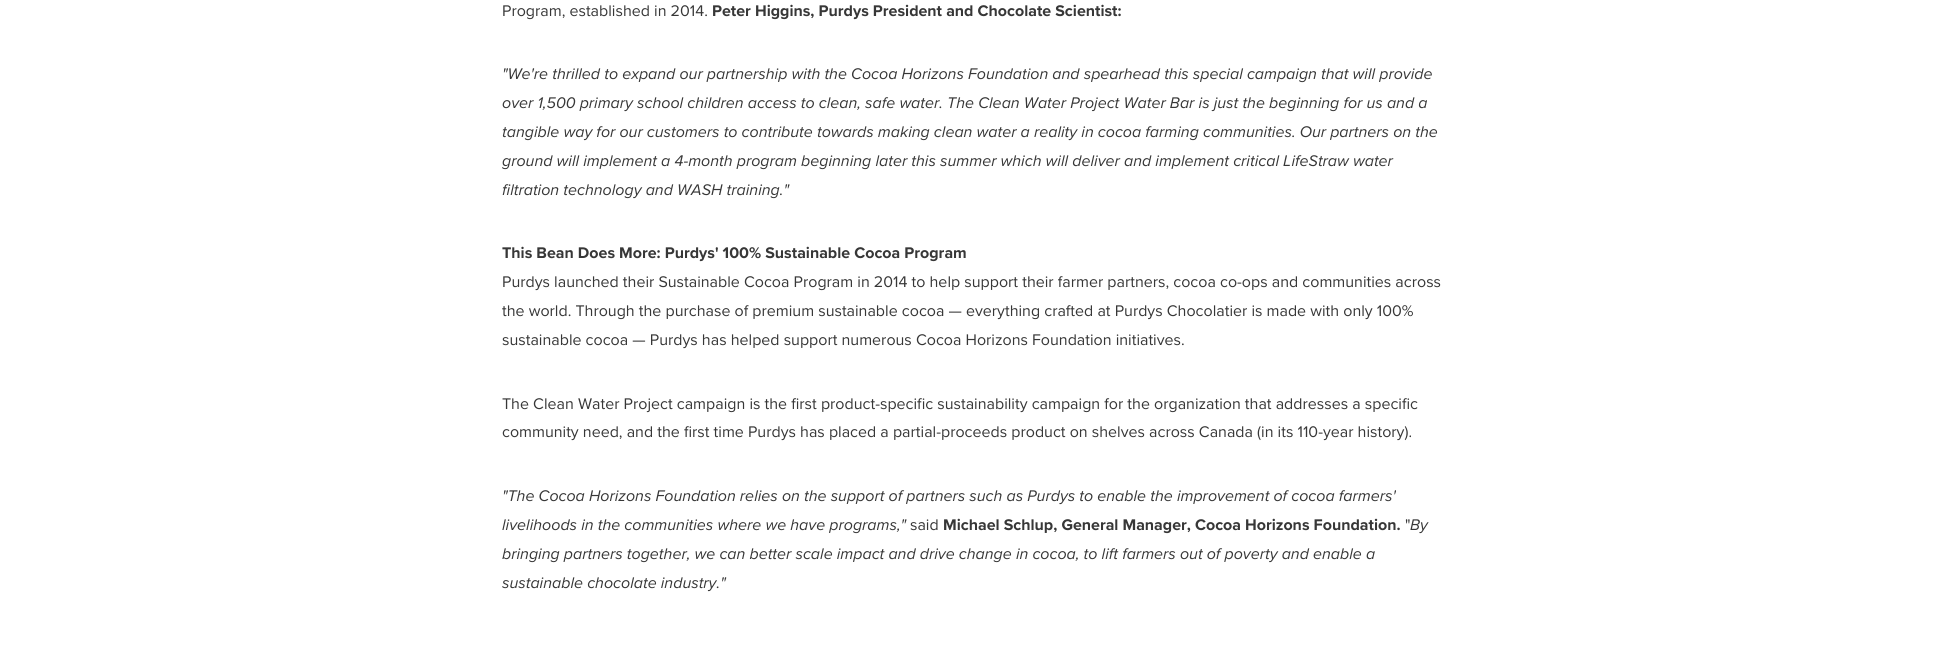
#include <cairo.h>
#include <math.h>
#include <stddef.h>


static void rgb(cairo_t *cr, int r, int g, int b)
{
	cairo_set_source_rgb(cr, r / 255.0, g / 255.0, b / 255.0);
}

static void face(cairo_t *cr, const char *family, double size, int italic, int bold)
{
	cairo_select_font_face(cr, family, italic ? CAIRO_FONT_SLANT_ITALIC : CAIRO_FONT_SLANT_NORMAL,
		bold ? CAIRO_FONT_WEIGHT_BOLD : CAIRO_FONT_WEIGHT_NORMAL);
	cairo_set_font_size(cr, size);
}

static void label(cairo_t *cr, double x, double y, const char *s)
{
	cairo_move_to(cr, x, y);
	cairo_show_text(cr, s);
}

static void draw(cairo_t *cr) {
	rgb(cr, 255, 255, 255);
	cairo_paint(cr);
	face(cr, "Proxima Nova", 16, 0, 0);
	rgb(cr, 55, 55, 55);
	label(cr, 502, 16, "Program, established in 2014.");
	face(cr, "Proxima Nova", 16, 0, 1);
	label(cr, 712, 16, "Peter Higgins, Purdys President and Chocolate Scientist:");
	face(cr, "Proxima Nova", 16, 1, 0);
	label(cr, 502, 79, "\"We're thrilled to expand our partnership with the Cocoa Horizons Foundation and spearhead this special campaign that will provide");
	label(cr, 502, 108, "over 1,500 primary school children access to clean, safe water. The Clean Water Project Water Bar is just the beginning for us and a");
	label(cr, 502, 137, "tangible way for our customers to contribute towards making clean water a reality in cocoa farming communities. Our partners on the");
	label(cr, 502, 166, "ground will implement a 4-month program beginning later this summer which will deliver and implement critical LifeStraw water");
	label(cr, 502, 195, "filtration technology and WASH training.\"");
	face(cr, "Proxima Nova", 16, 0, 1);
	label(cr, 502, 258, "This Bean Does More: Purdys' 100% Sustainable Cocoa Program");
	face(cr, "Proxima Nova", 16, 0, 0);
	label(cr, 502, 287, "Purdys launched their Sustainable Cocoa Program in 2014 to help support their farmer partners, cocoa co-ops and communities across");
	label(cr, 502, 316, "the world. Through the purchase of premium sustainable cocoa — everything crafted at Purdys Chocolatier is made with only 100%");
	label(cr, 502, 345, "sustainable cocoa — Purdys has helped support numerous Cocoa Horizons Foundation initiatives.");
	label(cr, 502, 409, "The Clean Water Project campaign is the first product-specific sustainability campaign for the organization that addresses a specific");
	label(cr, 502, 437, "community need, and the first time Purdys has placed a partial-proceeds product on shelves across Canada (in its 110-year history).");
	face(cr, "Proxima Nova", 16, 1, 0);
	label(cr, 502, 501, "\"The Cocoa Horizons Foundation relies on the support of partners such as Purdys to enable the improvement of cocoa farmers'");
	label(cr, 502, 530, "livelihoods in the communities where we have programs,\"");
	face(cr, "Proxima Nova", 16, 0, 0);
	label(cr, 910, 530, "said");
	face(cr, "Proxima Nova", 16, 0, 1);
	label(cr, 943, 530, "Michael Schlup, General Manager, Cocoa Horizons Foundation.");
	face(cr, "Proxima Nova", 16, 0, 0);
	label(cr, 1405, 530, "\"");
	face(cr, "Proxima Nova", 16, 1, 0);
	label(cr, 1410, 530, "By");
	label(cr, 502, 559, "bringing partners together, we can better scale impact and drive change in cocoa, to lift farmers out of poverty and enable a");
	label(cr, 502, 588, "sustainable chocolate industry.\"");
}

int main(void) {
	cairo_surface_t *surface = cairo_image_surface_create(CAIRO_FORMAT_RGB24, 1949, 647);
	cairo_t *cr = cairo_create(surface);
	cairo_font_options_t *options = cairo_font_options_create();
	cairo_font_options_set_hint_metrics(options, CAIRO_HINT_METRICS_OFF);
	cairo_font_options_set_hint_style(options, CAIRO_HINT_STYLE_NONE);
	cairo_set_font_options(cr, options);
	cairo_set_miter_limit(cr, 4);
	draw(cr);
	cairo_surface_write_to_png(surface, "render.png");
	cairo_font_options_destroy(options);
	cairo_destroy(cr);
	cairo_surface_destroy(surface);
	return 0;
}
